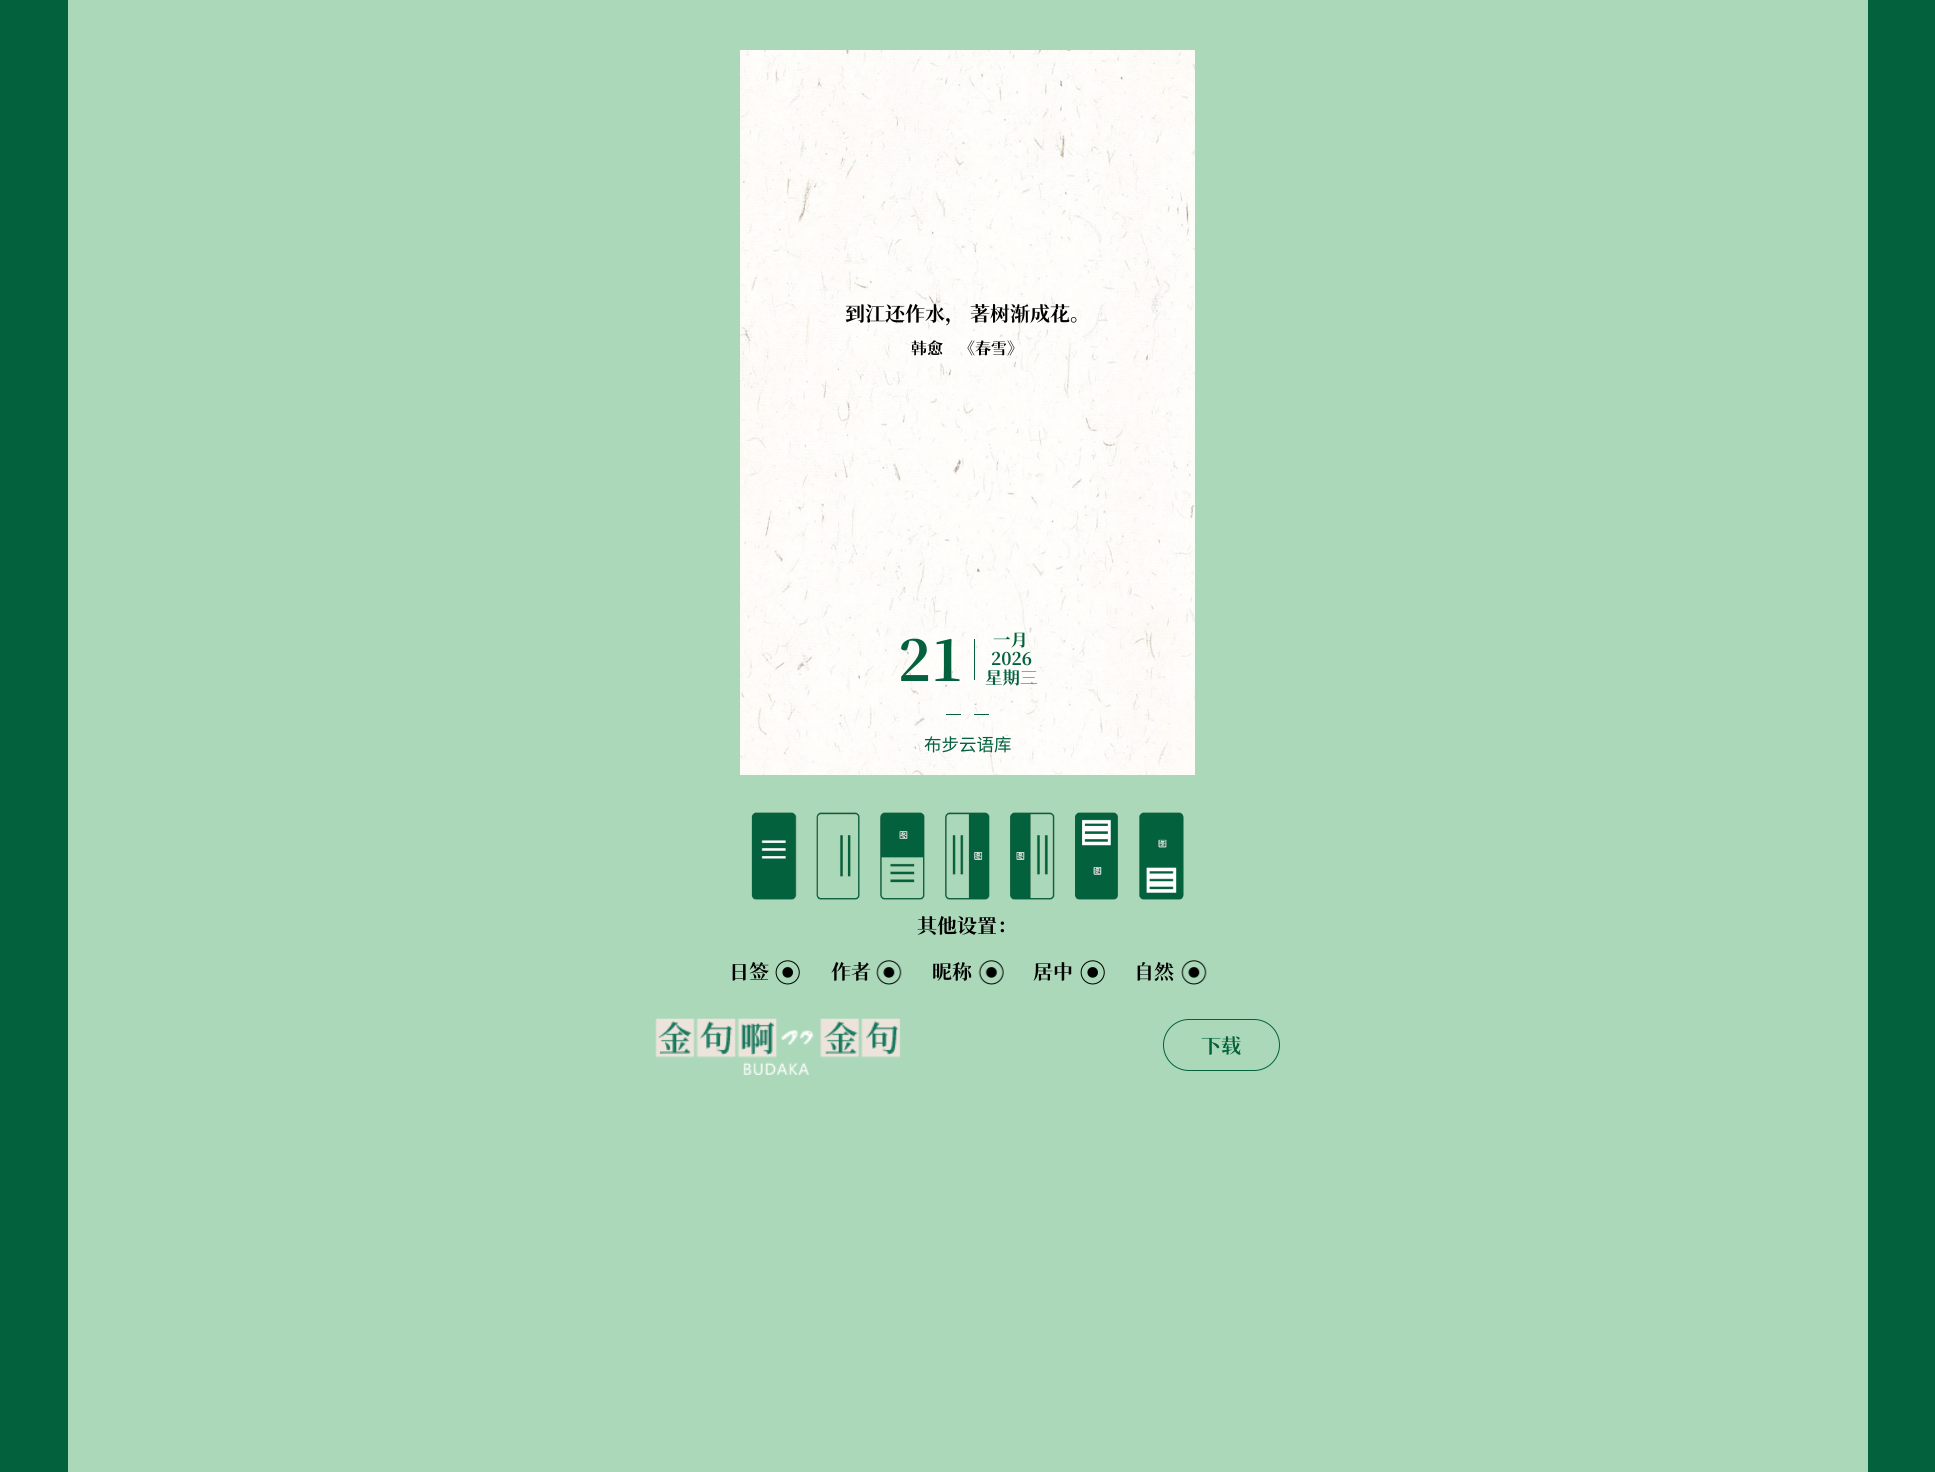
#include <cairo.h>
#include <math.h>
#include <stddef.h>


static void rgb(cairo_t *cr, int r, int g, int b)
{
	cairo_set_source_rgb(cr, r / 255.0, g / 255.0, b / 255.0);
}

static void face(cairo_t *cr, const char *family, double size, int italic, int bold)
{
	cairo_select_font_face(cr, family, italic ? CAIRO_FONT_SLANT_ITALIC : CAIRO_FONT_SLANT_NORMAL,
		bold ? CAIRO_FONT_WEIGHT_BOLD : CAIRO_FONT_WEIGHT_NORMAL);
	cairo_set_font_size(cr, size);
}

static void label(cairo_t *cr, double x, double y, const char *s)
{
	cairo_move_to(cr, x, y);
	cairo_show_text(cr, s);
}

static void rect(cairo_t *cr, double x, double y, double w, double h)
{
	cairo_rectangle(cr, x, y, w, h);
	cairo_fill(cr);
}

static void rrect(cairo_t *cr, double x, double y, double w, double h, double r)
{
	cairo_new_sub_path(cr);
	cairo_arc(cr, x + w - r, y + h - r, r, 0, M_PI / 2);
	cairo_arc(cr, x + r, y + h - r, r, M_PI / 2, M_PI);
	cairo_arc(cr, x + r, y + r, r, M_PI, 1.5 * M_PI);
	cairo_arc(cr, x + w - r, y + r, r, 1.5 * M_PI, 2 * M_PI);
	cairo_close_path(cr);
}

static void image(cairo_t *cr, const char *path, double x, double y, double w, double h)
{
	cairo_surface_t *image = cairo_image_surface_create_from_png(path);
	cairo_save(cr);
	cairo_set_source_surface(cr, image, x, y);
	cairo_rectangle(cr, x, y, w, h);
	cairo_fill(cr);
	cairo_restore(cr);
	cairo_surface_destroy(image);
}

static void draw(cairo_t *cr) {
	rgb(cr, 3, 97, 61);
	cairo_paint(cr);
	rgb(cr, 171, 216, 185);
	rect(cr, 68, 0, 1800, 1472);
	image(cr, "image0.png", 740, 50, 455, 725);
	face(cr, "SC", 20, 0, 1);
	rgb(cr, 0, 0, 0);
	label(cr, 845, 321, "到江还作水， 著树渐成花。");
	face(cr, "SC", 16, 0, 1);
	label(cr, 911, 354, "韩愈");
	label(cr, 959, 354, "《春雪》");
	face(cr, "SC", 56, 0, 1);
	rgb(cr, 3, 97, 61);
	label(cr, 898, 681, "21");
	rect(cr, 974, 639, 1, 41);
	face(cr, "SC", 17.5, 0, 1);
	label(cr, 993, 646, "一月");
	label(cr, 991, 665, "2026");
	label(cr, 985, 684, "星期三");
	rect(cr, 946, 714, 15, 1);
	rect(cr, 974, 714, 15, 1);
	face(cr, "Noto Sans CJK SC", 17.5, 0, 0);
	label(cr, 924, 751, "布步云语库");
	image(cr, "image1.png", 751, 812, 46, 88);
	image(cr, "image2.png", 816, 812, 44, 88);
	image(cr, "image3.png", 880, 812, 45, 88);
	image(cr, "image4.png", 945, 812, 45, 88);
	image(cr, "image5.png", 1010, 812, 45, 88);
	image(cr, "image6.png", 1075, 812, 43, 88);
	image(cr, "image7.png", 1139, 812, 45, 88);
	face(cr, "SC", 20, 0, 1);
	rgb(cr, 0, 0, 0);
	label(cr, 917, 933, "其他设置：");
	image(cr, "image8.png", 775, 960, 25, 25);
	label(cr, 729, 979, "日签");
	image(cr, "image9.png", 876, 960, 26, 25);
	label(cr, 831, 979, "作者");
	image(cr, "image10.png", 978, 960, 26, 25);
	label(cr, 932, 979, "昵称");
	image(cr, "image8.png", 1080, 960, 25, 25);
	label(cr, 1033, 979, "居中");
	image(cr, "image9.png", 1181, 960, 26, 25);
	label(cr, 1134, 979, "自然");
	image(cr, "image11.png", 655, 1018, 246, 57);
	rrect(cr, 1163.5, 1019.5, 116, 51, 25.5);
	rgb(cr, 3, 97, 61);
	cairo_set_line_width(cr, 1);
	cairo_stroke(cr);
	label(cr, 1201, 1053, "下载");
}

int main(void) {
	cairo_surface_t *surface = cairo_image_surface_create(CAIRO_FORMAT_RGB24, 1935, 1472);
	cairo_t *cr = cairo_create(surface);
	cairo_font_options_t *options = cairo_font_options_create();
	cairo_font_options_set_hint_metrics(options, CAIRO_HINT_METRICS_OFF);
	cairo_font_options_set_hint_style(options, CAIRO_HINT_STYLE_NONE);
	cairo_set_font_options(cr, options);
	cairo_set_miter_limit(cr, 4);
	draw(cr);
	cairo_surface_write_to_png(surface, "render.png");
	cairo_font_options_destroy(options);
	cairo_destroy(cr);
	cairo_surface_destroy(surface);
	return 0;
}
